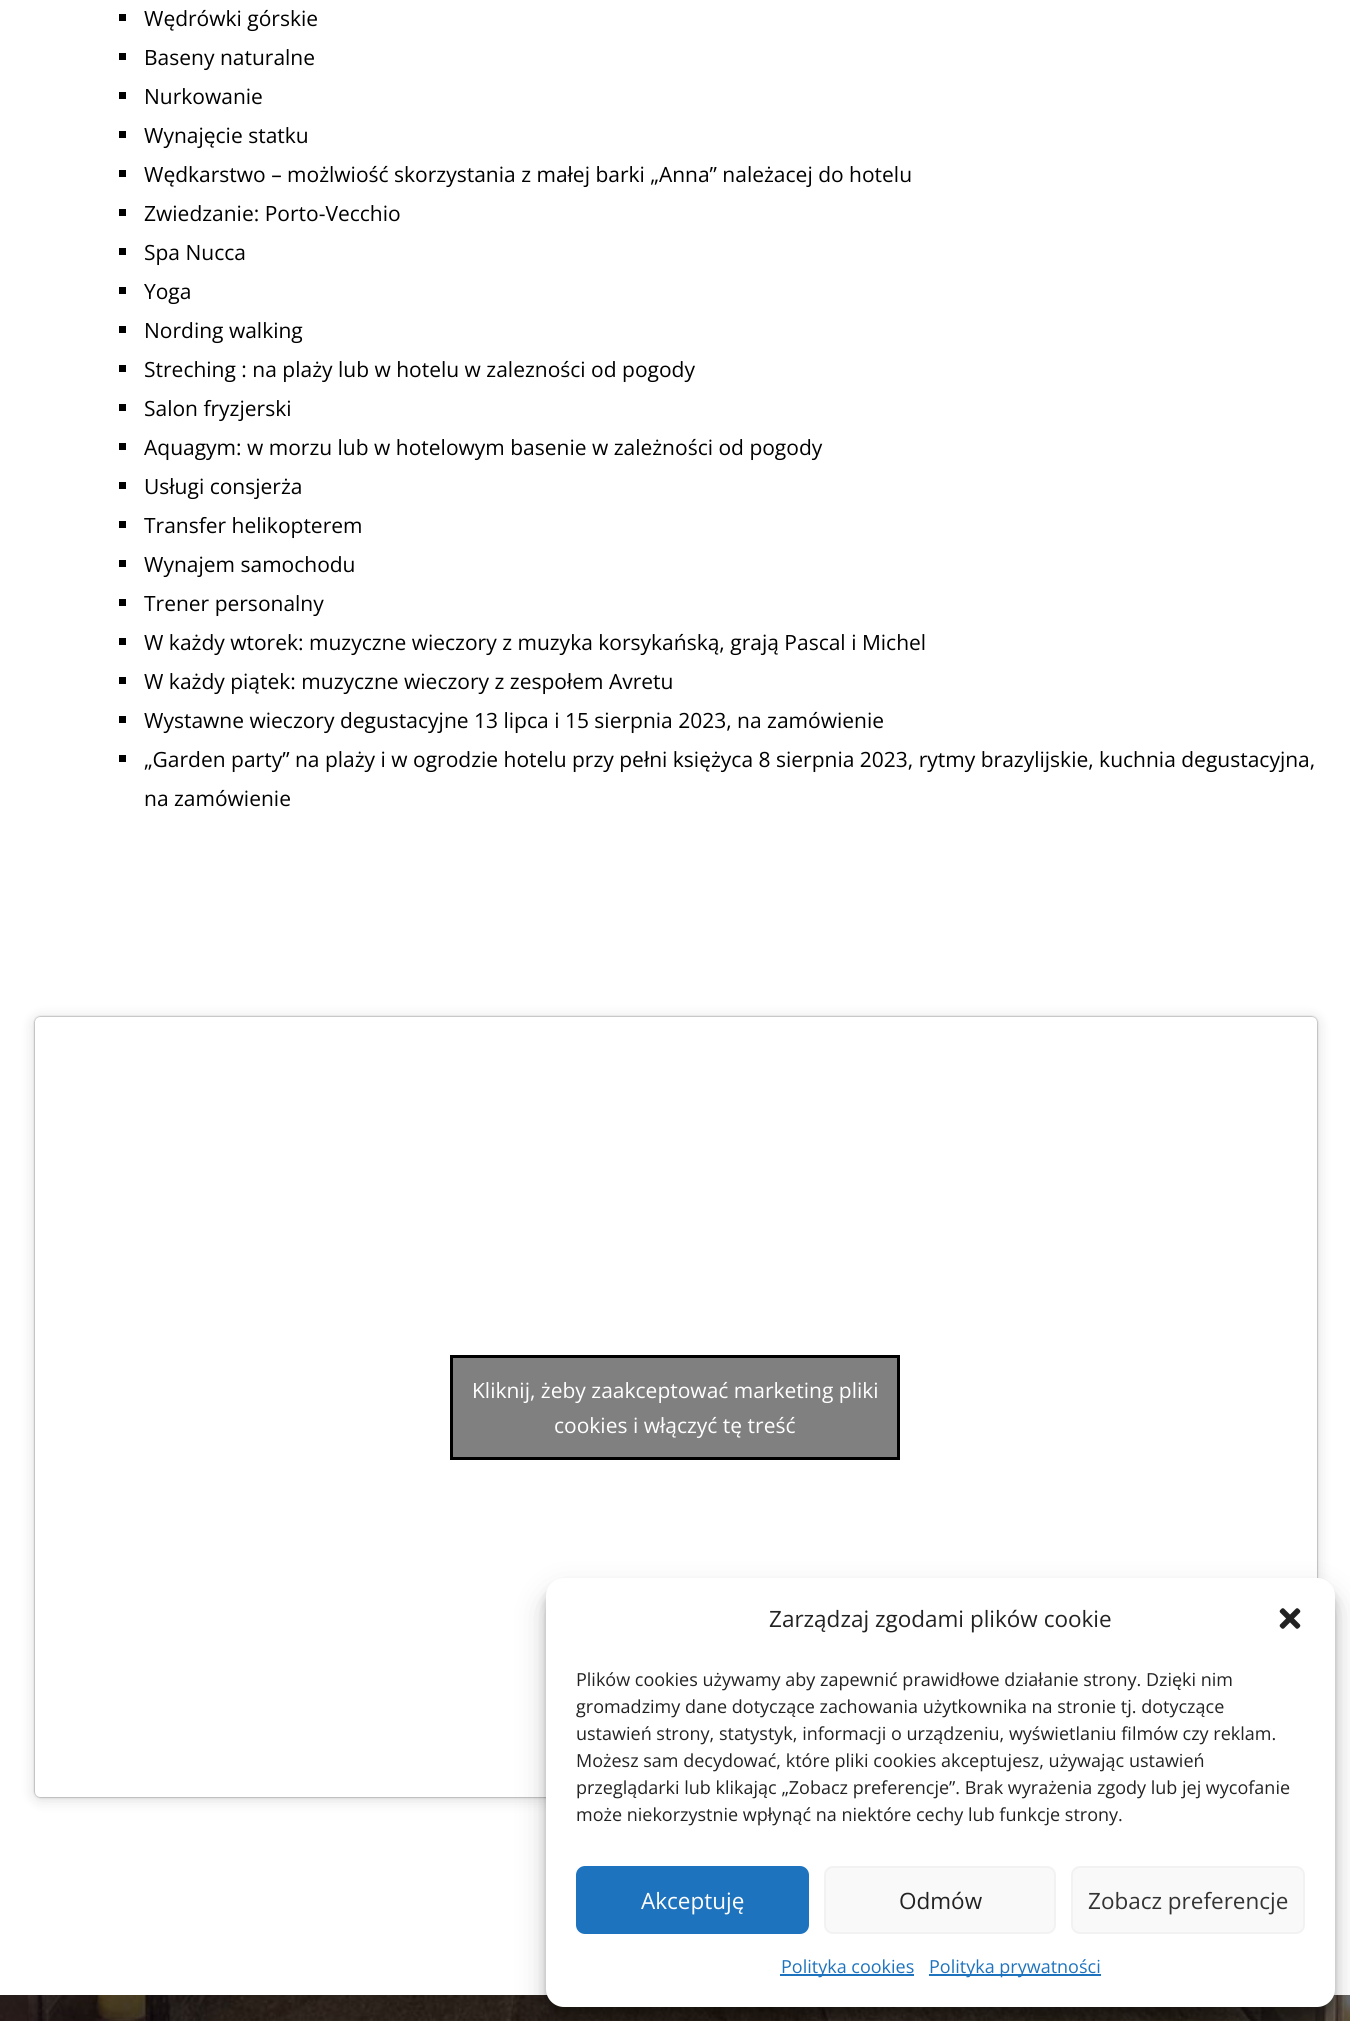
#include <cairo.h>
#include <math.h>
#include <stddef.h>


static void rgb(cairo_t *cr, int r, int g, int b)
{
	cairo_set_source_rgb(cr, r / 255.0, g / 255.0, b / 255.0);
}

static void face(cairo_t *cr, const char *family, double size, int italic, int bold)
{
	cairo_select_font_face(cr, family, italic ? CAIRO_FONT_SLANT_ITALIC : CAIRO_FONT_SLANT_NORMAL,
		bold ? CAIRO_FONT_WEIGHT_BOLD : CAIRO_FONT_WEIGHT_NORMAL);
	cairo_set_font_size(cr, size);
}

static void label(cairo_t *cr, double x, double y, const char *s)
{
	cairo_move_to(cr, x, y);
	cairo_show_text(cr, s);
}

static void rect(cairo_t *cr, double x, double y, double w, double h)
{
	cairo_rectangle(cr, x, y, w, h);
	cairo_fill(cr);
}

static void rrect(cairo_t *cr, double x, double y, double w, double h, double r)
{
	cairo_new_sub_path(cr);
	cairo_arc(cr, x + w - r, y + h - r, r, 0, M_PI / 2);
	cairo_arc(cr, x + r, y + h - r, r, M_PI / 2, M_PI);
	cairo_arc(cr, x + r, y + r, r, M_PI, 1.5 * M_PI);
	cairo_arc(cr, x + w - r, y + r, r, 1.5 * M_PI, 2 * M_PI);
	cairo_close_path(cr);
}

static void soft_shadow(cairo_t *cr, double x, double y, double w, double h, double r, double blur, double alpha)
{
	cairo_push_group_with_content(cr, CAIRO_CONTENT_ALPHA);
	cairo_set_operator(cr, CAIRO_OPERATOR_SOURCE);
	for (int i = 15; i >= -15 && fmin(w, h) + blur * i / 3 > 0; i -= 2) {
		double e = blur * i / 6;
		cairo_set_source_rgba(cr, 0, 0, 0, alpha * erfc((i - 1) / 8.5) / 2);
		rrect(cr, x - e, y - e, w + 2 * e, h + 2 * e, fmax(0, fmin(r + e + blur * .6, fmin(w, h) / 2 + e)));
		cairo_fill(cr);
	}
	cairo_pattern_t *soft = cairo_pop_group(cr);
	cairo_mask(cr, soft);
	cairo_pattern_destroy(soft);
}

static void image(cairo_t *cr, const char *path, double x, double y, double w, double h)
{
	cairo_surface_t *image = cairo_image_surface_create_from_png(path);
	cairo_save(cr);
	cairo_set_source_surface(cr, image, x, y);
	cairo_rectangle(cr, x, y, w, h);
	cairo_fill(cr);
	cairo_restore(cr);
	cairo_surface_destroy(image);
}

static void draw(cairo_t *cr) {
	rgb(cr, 255, 255, 255);
	cairo_paint(cr);
	rgb(cr, 0, 0, 0);
	rect(cr, 119, 14, 7, 7);
	face(cr, "Open Sans", 21, 0, 0);
	label(cr, 144, 26, "Wędrówki górskie");
	rect(cr, 119, 53, 7, 7);
	label(cr, 144, 65, "Baseny naturalne");
	rect(cr, 119, 92, 7, 7);
	label(cr, 144, 104, "Nurkowanie");
	rect(cr, 119, 131, 7, 7);
	label(cr, 144, 143, "Wynajęcie statku");
	rect(cr, 119, 170, 7, 7);
	label(cr, 144, 182, "Wędkarstwo – możlwiość skorzystania z małej barki „Anna” należacej do hotelu");
	rect(cr, 119, 209, 7, 7);
	label(cr, 144, 221, "Zwiedzanie: Porto-Vecchio");
	rect(cr, 119, 248, 7, 7);
	label(cr, 144, 260, "Spa Nucca");
	rect(cr, 119, 287, 7, 7);
	label(cr, 144, 299, "Yoga");
	rect(cr, 119, 326, 7, 7);
	label(cr, 144, 338, "Nording walking");
	rect(cr, 119, 365, 7, 7);
	label(cr, 144, 377, "Streching : na plaży lub w hotelu w zalezności od pogody");
	rect(cr, 119, 404, 7, 7);
	label(cr, 144, 416, "Salon fryzjerski");
	rect(cr, 119, 443, 7, 7);
	label(cr, 144, 455, "Aquagym: w morzu lub w hotelowym basenie w zależności od pogody");
	rect(cr, 119, 482, 7, 7);
	label(cr, 144, 494, "Usługi consjerża");
	rect(cr, 119, 521, 7, 7);
	label(cr, 144, 533, "Transfer helikopterem");
	rect(cr, 119, 560, 7, 7);
	label(cr, 144, 572, "Wynajem samochodu");
	rect(cr, 119, 599, 7, 7);
	label(cr, 144, 611, "Trener personalny");
	rect(cr, 119, 638, 7, 7);
	label(cr, 144, 650, "W każdy wtorek: muzyczne wieczory z muzyka korsykańską, grają Pascal i Michel");
	rect(cr, 119, 677, 7, 7);
	label(cr, 144, 689, "W każdy piątek: muzyczne wieczory z zespołem Avretu");
	rect(cr, 119, 716, 7, 7);
	label(cr, 144, 728, "Wystawne wieczory degustacyjne 13 lipca i 15 sierpnia 2023, na zamówienie");
	rect(cr, 119, 755, 7, 7);
	label(cr, 144, 767, "„Garden party” na plaży i w ogrodzie hotelu przy pełni księżyca 8 sierpnia 2023, rytmy brazylijskie, kuchnia degustacyjna,");
	label(cr, 144, 806, "na zamówienie");
	rgb(cr, 0, 0, 0);
	soft_shadow(cr, 35, 1019, 1282, 780, 5, 7.5, 0.15);
	soft_shadow(cr, 35, 1017, 1282, 780, 5, 1, 0.5);
	rgb(cr, 255, 255, 255);
	rrect(cr, 35, 1017, 1282, 780, 5);
	cairo_fill(cr);
	rgb(cr, 128, 128, 128);
	cairo_rectangle(cr, 451.5, 1356.5, 447, 102);
	cairo_fill_preserve(cr);
	rgb(cr, 0, 0, 0);
	cairo_set_line_width(cr, 3);
	cairo_stroke(cr);
	rgb(cr, 255, 255, 255);
	label(cr, 472, 1398, "Kliknij, żeby zaakceptować marketing pliki");
	label(cr, 554, 1433, "cookies i włączyć tę treść");
	image(cr, "image0.png", 0, 1995, 1350, 26);
	rgb(cr, 0, 0, 0);
	soft_shadow(cr, 546, 1587, 789, 429, 18, 4.5, 0.23);
	soft_shadow(cr, 546, 1593, 789, 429, 18, 15, 0.19);
	rgb(cr, 255, 255, 255);
	rrect(cr, 546, 1578, 789, 429, 18);
	cairo_fill(cr);
	face(cr, "Open Sans", 22.5, 0, 0);
	rgb(cr, 34, 34, 34);
	label(cr, 769, 1627, "Zarządzaj zgodami plików cookie");
	image(cr, "image1.png", 1279, 1608, 22, 21);
	face(cr, "Open Sans", 18, 0, 0);
	label(cr, 576, 1686, "Plików cookies używamy aby zapewnić prawidłowe działanie strony. Dzięki nim");
	label(cr, 576, 1713, "gromadzimy dane dotyczące zachowania użytkownika na stronie tj. dotyczące");
	label(cr, 576, 1740, "ustawień strony, statystyk, informacji o urządzeniu, wyświetlaniu filmów czy reklam.");
	label(cr, 576, 1767, "Możesz sam decydować, które pliki cookies akceptujesz, używając ustawień");
	label(cr, 576, 1794, "przeglądarki lub klikając „Zobacz preferencje”. Brak wyrażenia zgody lub jej wycofanie");
	label(cr, 576, 1821, "może niekorzystnie wpłynąć na niektóre cechy lub funkcje strony.");
	rgb(cr, 30, 115, 190);
	rrect(cr, 577, 1867, 231, 66, 8);
	cairo_fill_preserve(cr);
	cairo_set_line_width(cr, 2);
	cairo_stroke(cr);
	face(cr, "Open Sans", 22.5, 0, 0);
	rgb(cr, 255, 255, 255);
	label(cr, 641, 1909, "Akceptuję");
	rgb(cr, 249, 249, 249);
	rrect(cr, 825, 1867, 230, 66, 8);
	cairo_fill_preserve(cr);
	rgb(cr, 242, 242, 242);
	cairo_stroke(cr);
	rgb(cr, 34, 34, 34);
	label(cr, 899, 1909, "Odmów");
	rgb(cr, 249, 249, 249);
	rrect(cr, 1072, 1867, 232, 66, 8);
	cairo_fill_preserve(cr);
	rgb(cr, 242, 242, 242);
	cairo_stroke(cr);
	rgb(cr, 51, 51, 51);
	label(cr, 1088, 1909, "Zobacz preferencje");
	rgb(cr, 30, 115, 190);
	rect(cr, 780, 1974, 134, 2);
	face(cr, "Open Sans", 18, 0, 0);
	label(cr, 781, 1973, "Polityka cookies");
	rect(cr, 929, 1974, 172, 2);
	label(cr, 929, 1973, "Polityka prywatności");
}

int main(void) {
	cairo_surface_t *surface = cairo_image_surface_create(CAIRO_FORMAT_RGB24, 1350, 2021);
	cairo_t *cr = cairo_create(surface);
	cairo_font_options_t *options = cairo_font_options_create();
	cairo_font_options_set_hint_metrics(options, CAIRO_HINT_METRICS_OFF);
	cairo_font_options_set_hint_style(options, CAIRO_HINT_STYLE_NONE);
	cairo_set_font_options(cr, options);
	cairo_set_miter_limit(cr, 4);
	draw(cr);
	cairo_surface_write_to_png(surface, "render.png");
	cairo_font_options_destroy(options);
	cairo_destroy(cr);
	cairo_surface_destroy(surface);
	return 0;
}
